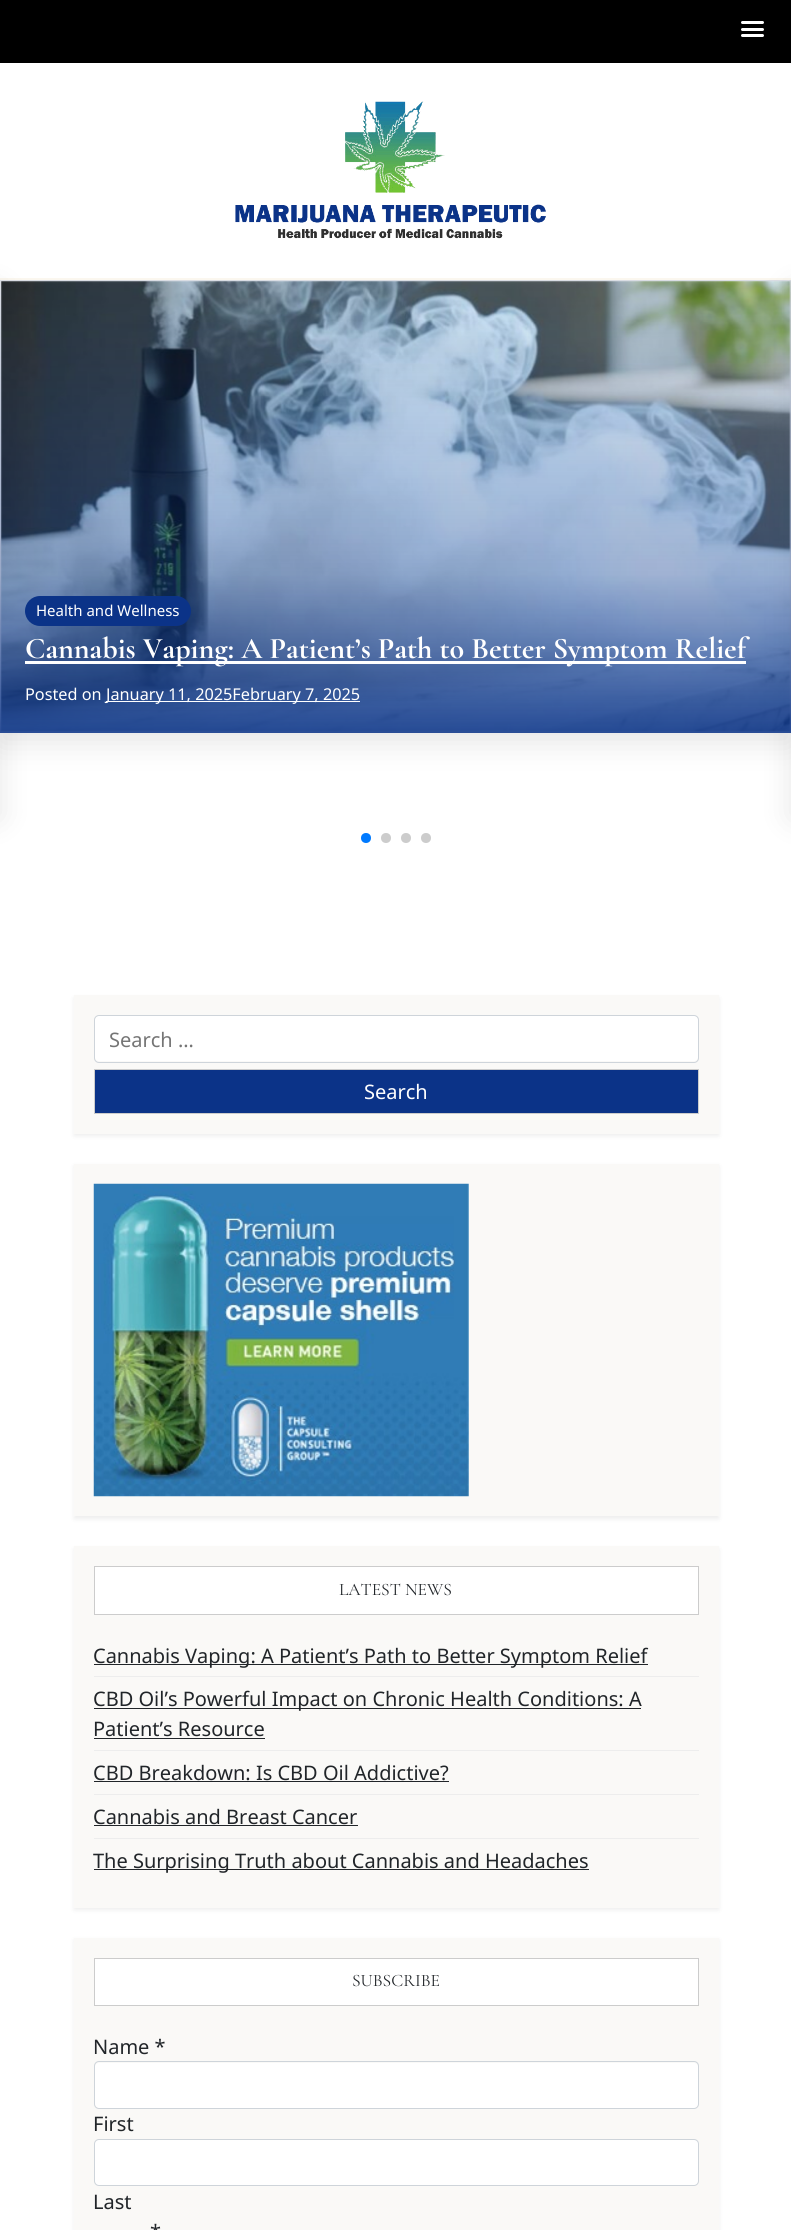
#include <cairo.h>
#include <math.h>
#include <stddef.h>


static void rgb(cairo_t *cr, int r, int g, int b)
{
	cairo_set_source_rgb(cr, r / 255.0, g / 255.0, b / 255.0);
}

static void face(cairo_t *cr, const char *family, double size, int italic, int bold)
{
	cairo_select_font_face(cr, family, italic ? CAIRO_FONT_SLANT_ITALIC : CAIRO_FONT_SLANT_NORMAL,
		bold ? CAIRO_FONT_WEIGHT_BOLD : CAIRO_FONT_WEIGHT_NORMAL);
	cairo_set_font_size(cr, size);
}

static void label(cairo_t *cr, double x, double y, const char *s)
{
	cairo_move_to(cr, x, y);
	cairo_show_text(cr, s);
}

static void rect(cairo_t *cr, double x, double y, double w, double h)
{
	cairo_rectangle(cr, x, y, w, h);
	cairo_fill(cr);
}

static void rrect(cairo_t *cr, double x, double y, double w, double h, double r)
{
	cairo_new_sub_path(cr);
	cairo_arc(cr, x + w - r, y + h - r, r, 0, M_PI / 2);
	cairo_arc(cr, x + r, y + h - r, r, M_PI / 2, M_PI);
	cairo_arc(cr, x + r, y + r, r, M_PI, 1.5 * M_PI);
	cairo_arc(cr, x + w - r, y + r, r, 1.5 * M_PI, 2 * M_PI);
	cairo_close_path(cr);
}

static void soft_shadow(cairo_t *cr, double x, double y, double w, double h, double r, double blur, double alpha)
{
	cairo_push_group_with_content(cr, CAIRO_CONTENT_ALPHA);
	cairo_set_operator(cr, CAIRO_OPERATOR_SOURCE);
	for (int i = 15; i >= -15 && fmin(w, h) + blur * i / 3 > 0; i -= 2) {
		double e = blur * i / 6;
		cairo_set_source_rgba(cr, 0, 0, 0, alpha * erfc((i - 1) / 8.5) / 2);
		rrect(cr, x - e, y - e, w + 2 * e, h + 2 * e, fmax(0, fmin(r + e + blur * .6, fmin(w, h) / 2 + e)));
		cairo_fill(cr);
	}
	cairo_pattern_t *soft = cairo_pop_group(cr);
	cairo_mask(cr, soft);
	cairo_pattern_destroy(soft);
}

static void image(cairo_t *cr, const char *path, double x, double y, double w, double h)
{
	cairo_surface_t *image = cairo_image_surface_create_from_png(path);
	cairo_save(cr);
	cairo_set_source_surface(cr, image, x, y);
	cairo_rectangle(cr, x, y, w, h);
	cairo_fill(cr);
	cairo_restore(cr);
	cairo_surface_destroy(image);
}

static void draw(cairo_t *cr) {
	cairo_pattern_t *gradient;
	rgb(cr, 255, 255, 255);
	cairo_paint(cr);
	rgb(cr, 0, 0, 0);
	rect(cr, 0, 0, 791, 63);
	rgb(cr, 255, 255, 255);
	rrect(cr, 741, 21, 23, 3, 1.5);
	cairo_fill(cr);
	rrect(cr, 741, 28, 23, 3, 1.5);
	cairo_fill(cr);
	rrect(cr, 741, 34, 23, 3, 1.5);
	cairo_fill(cr);
	rgb(cr, 251, 247, 239);
	rect(cr, 0, 278, 791, 2);
	image(cr, "image0.png", 235, 101, 311, 138);
	rgb(cr, 0, 0, 0);
	soft_shadow(cr, -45, 290, 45, 528, 0, 15, 0.1);
	cairo_save(cr);
	cairo_rectangle(cr, 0, 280, 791, 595);
	cairo_clip(cr);
	soft_shadow(cr, 0, 290, 791, 453, 0, 15, 0.1);
	cairo_restore(cr);
	cairo_rectangle(cr, 0.5, 280.5, 790, 452);
	rgb(cr, 237, 237, 237);
	cairo_set_line_width(cr, 1);
	cairo_stroke(cr);
	image(cr, "image1.png", 1, 281, 790, 451);
	rgb(cr, 0, 0, 0);
	soft_shadow(cr, 791, 290, 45, 528, 0, 15, 0.1);
	gradient = cairo_pattern_create_linear(396, 733, 396, 280);
	cairo_pattern_add_color_stop_rgba(gradient, 0, 0.043, 0.2, 0.533, 0.86);
	cairo_pattern_add_color_stop_rgba(gradient, 0.35, 0.043, 0.2, 0.533, 0.37);
	cairo_pattern_add_color_stop_rgba(gradient, 1, 0.043, 0.2, 0.533, 0.08);
	cairo_set_source(cr, gradient);
	cairo_pattern_destroy(gradient);
	rect(cr, 0, 280, 791, 453);
	rgb(cr, 11, 51, 136);
	rrect(cr, 25, 596, 166, 30, 15);
	cairo_fill(cr);
	face(cr, "Noto Sans", 15, 0, 0);
	rgb(cr, 255, 255, 255);
	label(cr, 36, 616, "Health and Wellness");
	rect(cr, 25, 661, 721, 3);
	face(cr, "Cormorant Garamond", 30, 0, 1);
	label(cr, 25, 658, "Cannabis Vaping: A Patient’s Path to Better Symptom Relief");
	face(cr, "Noto Sans", 16.25, 0, 0);
	label(cr, 25, 700, "Posted on");
	rect(cr, 106, 701, 254, 1);
	label(cr, 106, 700, "January 11, 2025February 7, 2025");
	rgb(cr, 0, 122, 255);
	cairo_new_path(cr);
	cairo_arc(cr, 366, 838, 5, 0, 2 * M_PI);
	cairo_fill(cr);
	rgb(cr, 204, 204, 204);
	cairo_arc(cr, 386, 838, 5, 0, 2 * M_PI);
	cairo_fill(cr);
	cairo_arc(cr, 406, 838, 5, 0, 2 * M_PI);
	cairo_fill(cr);
	cairo_arc(cr, 426, 838, 5, 0, 2 * M_PI);
	cairo_fill(cr);
	rgb(cr, 0, 0, 0);
	soft_shadow(cr, 74, 998, 645, 138, 0, 2.5, 0.07);
	rgb(cr, 250, 249, 247);
	rect(cr, 74, 995, 645, 139);
	rgb(cr, 255, 255, 255);
	rrect(cr, 95, 1016, 603, 45, 4);
	cairo_fill(cr);
	rrect(cr, 94.5, 1015.5, 604, 47, 4.5);
	rgb(cr, 206, 212, 218);
	cairo_stroke(cr);
	face(cr, "Noto Sans", 20, 0, 0);
	rgb(cr, 117, 117, 117);
	label(cr, 109, 1047, "Search …");
	rgb(cr, 11, 51, 136);
	cairo_rectangle(cr, 94.5, 1069.5, 604, 44);
	cairo_fill_preserve(cr);
	rgb(cr, 204, 204, 204);
	cairo_stroke(cr);
	rgb(cr, 255, 255, 255);
	label(cr, 364, 1099, "Search");
	rgb(cr, 0, 0, 0);
	soft_shadow(cr, 74, 1166, 645, 353, 0, 2.5, 0.07);
	rgb(cr, 250, 249, 247);
	rect(cr, 74, 1164, 645, 352);
	image(cr, "image2.png", 93, 1183, 376, 314);
	rgb(cr, 0, 0, 0);
	soft_shadow(cr, 74, 1549, 645, 361, 0, 2.5, 0.07);
	rgb(cr, 250, 249, 247);
	rect(cr, 74, 1546, 645, 362);
	rgb(cr, 255, 255, 255);
	cairo_rectangle(cr, 94.5, 1566.5, 604, 48);
	cairo_fill_preserve(cr);
	rgb(cr, 204, 204, 204);
	cairo_stroke(cr);
	face(cr, "Cormorant Garamond", 17.5, 0, 0);
	rgb(cr, 33, 37, 41);
	label(cr, 339, 1595, "LATEST NEWS");
	rgb(cr, 237, 237, 237);
	rect(cr, 94, 1676, 605, 1);
	rgb(cr, 33, 37, 41);
	rect(cr, 94, 1664, 554, 1);
	face(cr, "Noto Sans", 20, 0, 0);
	label(cr, 93, 1663, "Cannabis Vaping: A Patient’s Path to Better Symptom Relief");
	rgb(cr, 237, 237, 237);
	rect(cr, 94, 1750, 605, 1);
	rgb(cr, 33, 37, 41);
	rect(cr, 94, 1708, 547, 1);
	label(cr, 93, 1706, "CBD Oil’s Powerful Impact on Chronic Health Conditions: A");
	label(cr, 93, 1736, "Patient’s Resource");
	rect(cr, 94, 1738, 171, 1);
	rgb(cr, 237, 237, 237);
	rect(cr, 94, 1794, 605, 1);
	rgb(cr, 33, 37, 41);
	label(cr, 93, 1780, "CBD Breakdown: Is CBD Oil Addictive?");
	rect(cr, 94, 1781, 355, 1);
	rgb(cr, 237, 237, 237);
	rect(cr, 94, 1838, 605, 1);
	rgb(cr, 33, 37, 41);
	label(cr, 93, 1824, "Cannabis and Breast Cancer");
	rect(cr, 94, 1825, 264, 1);
	rect(cr, 94, 1869, 495, 1);
	label(cr, 93, 1868, "The Surprising Truth about Cannabis and Headaches");
	rgb(cr, 0, 0, 0);
	soft_shadow(cr, 74, 1940, 645, 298, 0, 2.5, 0.07);
	rgb(cr, 250, 249, 247);
	rect(cr, 74, 1938, 645, 292);
	rgb(cr, 255, 255, 255);
	cairo_rectangle(cr, 94.5, 1958.5, 604, 47);
	cairo_fill_preserve(cr);
	rgb(cr, 204, 204, 204);
	cairo_stroke(cr);
	face(cr, "Cormorant Garamond", 17.5, 0, 0);
	rgb(cr, 33, 37, 41);
	label(cr, 352, 1986, "SUBSCRIBE");
	face(cr, "Noto Sans", 20, 0, 0);
	label(cr, 93, 2054, "Name *");
	rgb(cr, 255, 255, 255);
	rrect(cr, 95, 2063, 603, 45, 4);
	cairo_fill(cr);
	rrect(cr, 94.5, 2061.5, 604, 47, 4.5);
	rgb(cr, 206, 212, 218);
	cairo_stroke(cr);
	rgb(cr, 33, 37, 41);
	label(cr, 93, 2131, "First");
	rgb(cr, 255, 255, 255);
	rrect(cr, 94.5, 2139.5, 604, 46, 4.5);
	cairo_fill_preserve(cr);
	rgb(cr, 206, 212, 218);
	cairo_stroke(cr);
	rgb(cr, 33, 37, 41);
	label(cr, 93, 2209, "Last");
	label(cr, 150, 2239, "*");
}

int main(void) {
	cairo_surface_t *surface = cairo_image_surface_create(CAIRO_FORMAT_RGB24, 791, 2230);
	cairo_t *cr = cairo_create(surface);
	cairo_font_options_t *options = cairo_font_options_create();
	cairo_font_options_set_hint_metrics(options, CAIRO_HINT_METRICS_OFF);
	cairo_font_options_set_hint_style(options, CAIRO_HINT_STYLE_NONE);
	cairo_set_font_options(cr, options);
	cairo_set_miter_limit(cr, 4);
	draw(cr);
	cairo_surface_write_to_png(surface, "render.png");
	cairo_font_options_destroy(options);
	cairo_destroy(cr);
	cairo_surface_destroy(surface);
	return 0;
}
